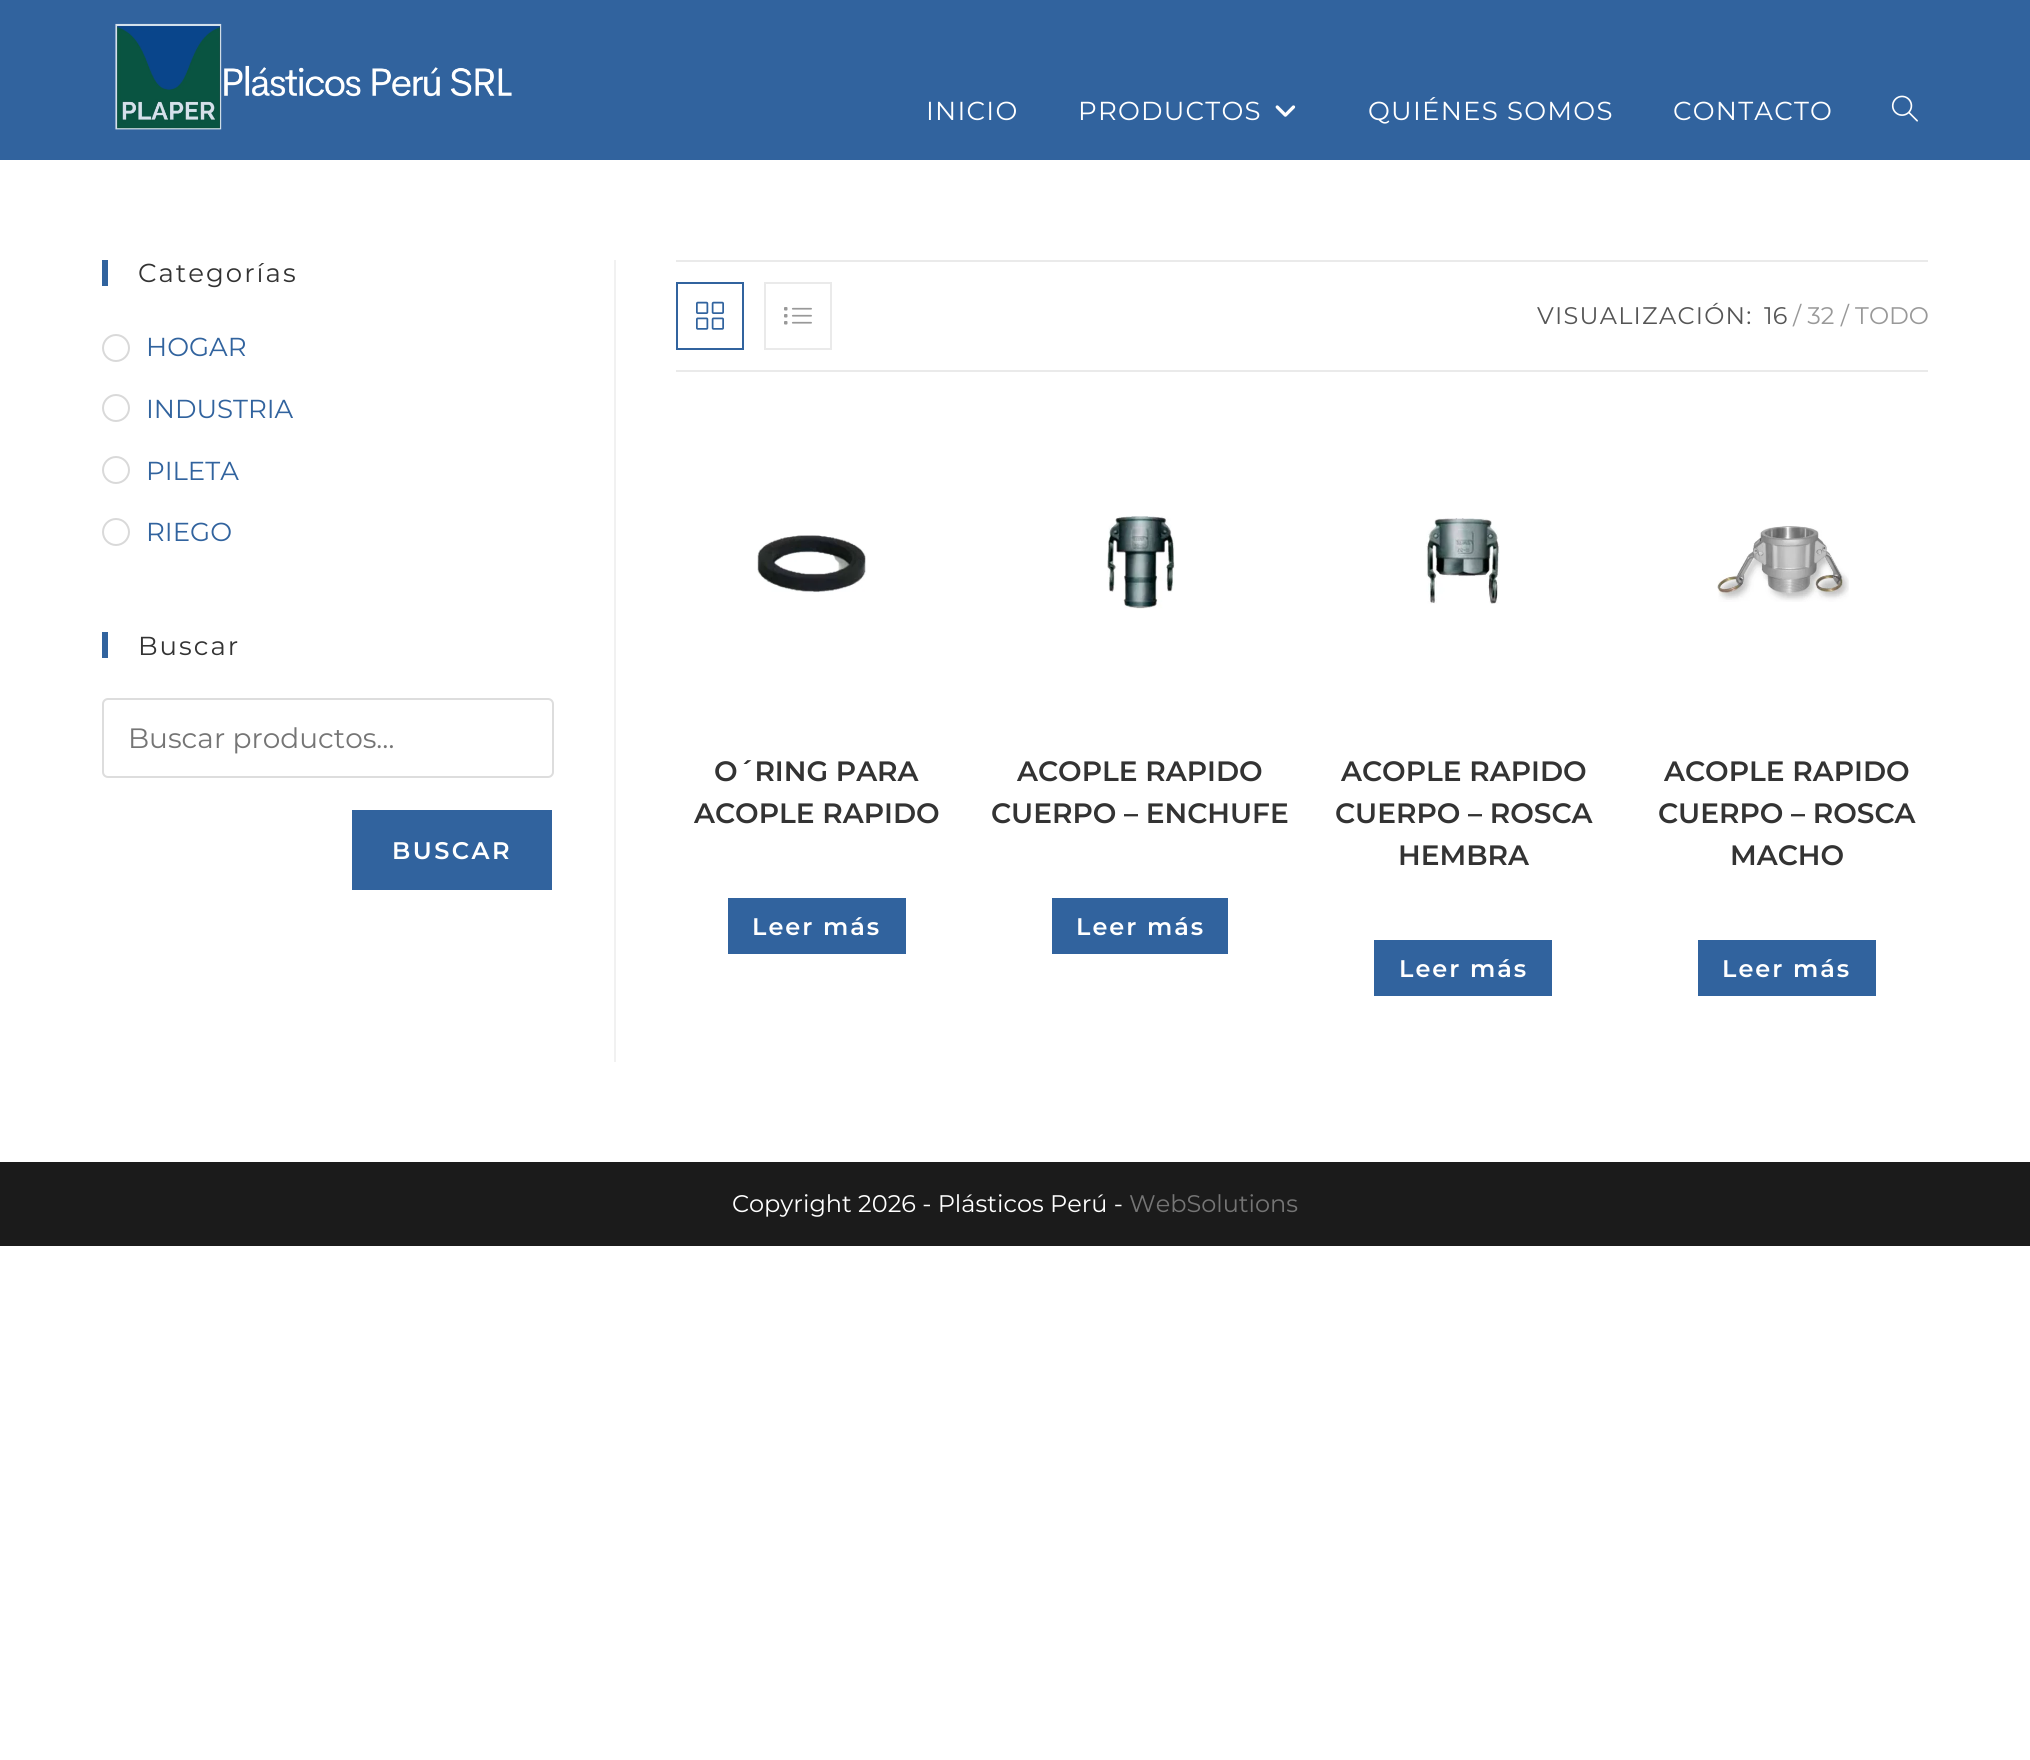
#include <cairo.h>
#include <math.h>
#include <stddef.h>


static void rgb(cairo_t *cr, int r, int g, int b)
{
	cairo_set_source_rgb(cr, r / 255.0, g / 255.0, b / 255.0);
}

static void face(cairo_t *cr, const char *family, double size, int italic, int bold)
{
	cairo_select_font_face(cr, family, italic ? CAIRO_FONT_SLANT_ITALIC : CAIRO_FONT_SLANT_NORMAL,
		bold ? CAIRO_FONT_WEIGHT_BOLD : CAIRO_FONT_WEIGHT_NORMAL);
	cairo_set_font_size(cr, size);
}

static void label(cairo_t *cr, double x, double y, const char *s)
{
	cairo_move_to(cr, x, y);
	cairo_show_text(cr, s);
}

static void tracked(cairo_t *cr, double x, double y, const char *s, double letter, double word)
{
	cairo_move_to(cr, x, y);
	while (*s) {
		char ch[5] = {0};
		int n = 0;
		do ch[n++] = *s++; while ((*s & 0xC0) == 0x80);
		cairo_show_text(cr, ch);
		cairo_rel_move_to(cr, letter + word * (*ch == ' '), 0);
	}
}

static void rect(cairo_t *cr, double x, double y, double w, double h)
{
	cairo_rectangle(cr, x, y, w, h);
	cairo_fill(cr);
}

static void rrect(cairo_t *cr, double x, double y, double w, double h, double r)
{
	cairo_new_sub_path(cr);
	cairo_arc(cr, x + w - r, y + h - r, r, 0, M_PI / 2);
	cairo_arc(cr, x + r, y + h - r, r, M_PI / 2, M_PI);
	cairo_arc(cr, x + r, y + r, r, M_PI, 1.5 * M_PI);
	cairo_arc(cr, x + w - r, y + r, r, 1.5 * M_PI, 2 * M_PI);
	cairo_close_path(cr);
}

static void image(cairo_t *cr, const char *path, double x, double y, double w, double h)
{
	cairo_surface_t *image = cairo_image_surface_create_from_png(path);
	cairo_save(cr);
	cairo_set_source_surface(cr, image, x, y);
	cairo_rectangle(cr, x, y, w, h);
	cairo_fill(cr);
	cairo_restore(cr);
	cairo_surface_destroy(image);
}

static void draw(cairo_t *cr) {
	rgb(cr, 255, 255, 255);
	cairo_paint(cr);
	rgb(cr, 49, 99, 158);
	rect(cr, 0, 0, 2030, 160);
	image(cr, "image0.png", 115, 23, 397, 107);
	face(cr, "Montserrat", 26, 0, 0);
	rgb(cr, 255, 255, 255);
	tracked(cr, 926, 120, "INICIO", 1.25, 0);
	tracked(cr, 1078, 120, "PRODUCTOS", 1.25, 0);
	image(cr, "image1.png", 1275, 105, 21, 12);
	tracked(cr, 1368, 120, "QUIÉNES SOMOS", 1.25, 0);
	tracked(cr, 1673, 120, "CONTACTO", 1.25, 0);
	image(cr, "image2.png", 1891, 95, 27, 27);
	rgb(cr, 49, 99, 158);
	rect(cr, 102, 260, 6, 26);
	rgb(cr, 51, 51, 51);
	tracked(cr, 138, 282, "Categorías", 2, 0);
	cairo_new_path(cr);
	cairo_arc(cr, 116, 348, 13, 0, 2 * M_PI);
	rgb(cr, 217, 217, 217);
	cairo_stroke(cr);
	rgb(cr, 49, 99, 158);
	label(cr, 146, 356, "HOGAR");
	cairo_new_path(cr);
	cairo_arc(cr, 116, 408, 13, 0, 2 * M_PI);
	rgb(cr, 217, 217, 217);
	cairo_stroke(cr);
	rgb(cr, 49, 99, 158);
	label(cr, 146, 418, "INDUSTRIA");
	cairo_new_path(cr);
	cairo_arc(cr, 116, 470, 13, 0, 2 * M_PI);
	rgb(cr, 217, 217, 217);
	cairo_stroke(cr);
	rgb(cr, 49, 99, 158);
	label(cr, 146, 480, "PILETA");
	cairo_new_path(cr);
	cairo_arc(cr, 116, 532, 13, 0, 2 * M_PI);
	rgb(cr, 217, 217, 217);
	cairo_stroke(cr);
	rgb(cr, 49, 99, 158);
	label(cr, 146, 541, "RIEGO");
	rect(cr, 102, 632, 6, 26);
	rgb(cr, 51, 51, 51);
	tracked(cr, 138, 655, "Buscar", 2, 0);
	rrect(cr, 103, 699, 450, 78, 5);
	rgb(cr, 221, 221, 221);
	cairo_stroke(cr);
	face(cr, "Montserrat", 28, 0, 0);
	rgb(cr, 117, 117, 117);
	label(cr, 128, 748, "Buscar productos…");
	rgb(cr, 49, 99, 158);
	rect(cr, 352, 810, 200, 80);
	face(cr, "Montserrat SemiBold", 24, 0, 0);
	rgb(cr, 255, 255, 255);
	tracked(cr, 392, 859, "BUSCAR", 2.5, 0);
	rgb(cr, 241, 241, 241);
	rect(cr, 614, 260, 2, 802);
	rgb(cr, 234, 234, 234);
	rect(cr, 676, 260, 1252, 2);
	rect(cr, 676, 370, 1252, 2);
	cairo_rectangle(cr, 677, 283, 66, 66);
	rgb(cr, 49, 99, 158);
	cairo_stroke(cr);
	image(cr, "image3.png", 696, 301, 28, 29);
	cairo_rectangle(cr, 765, 283, 66, 66);
	rgb(cr, 234, 234, 234);
	cairo_stroke(cr);
	image(cr, "image4.png", 784, 307, 28, 18);
	face(cr, "Montserrat", 24, 0, 0);
	rgb(cr, 85, 85, 85);
	tracked(cr, 1537, 324, "VISUALIZACIÓN:", 1.25, 0);
	label(cr, 1764, 324, "16");
	rgb(cr, 153, 153, 153);
	label(cr, 1793, 324, "/ 32 / TODO");
	image(cr, "image5.png", 757, 535, 110, 59);
	face(cr, "Montserrat SemiBold", 28, 0, 0);
	rgb(cr, 51, 51, 51);
	label(cr, 714, 781, "O´RING PARA");
	label(cr, 694, 823, "ACOPLE RAPIDO");
	rgb(cr, 49, 99, 158);
	rect(cr, 728, 898, 178, 56);
	face(cr, "Montserrat SemiBold", 24, 0, 0);
	rgb(cr, 255, 255, 255);
	tracked(cr, 752, 935, "Leer más", 2, 0);
	image(cr, "image6.png", 1107, 516, 68, 93);
	face(cr, "Montserrat SemiBold", 28, 0, 0);
	rgb(cr, 51, 51, 51);
	label(cr, 1017, 781, "ACOPLE RAPIDO");
	label(cr, 991, 823, "CUERPO – ENCHUFE");
	rgb(cr, 49, 99, 158);
	rect(cr, 1052, 898, 176, 56);
	face(cr, "Montserrat SemiBold", 24, 0, 0);
	rgb(cr, 255, 255, 255);
	tracked(cr, 1076, 935, "Leer más", 2, 0);
	image(cr, "image7.png", 1426, 518, 74, 86);
	face(cr, "Montserrat SemiBold", 28, 0, 0);
	rgb(cr, 51, 51, 51);
	label(cr, 1341, 781, "ACOPLE RAPIDO");
	label(cr, 1335, 823, "CUERPO – ROSCA");
	label(cr, 1398, 865, "HEMBRA");
	rgb(cr, 49, 99, 158);
	rect(cr, 1374, 940, 178, 56);
	face(cr, "Montserrat SemiBold", 24, 0, 0);
	rgb(cr, 255, 255, 255);
	tracked(cr, 1399, 977, "Leer más", 2, 0);
	image(cr, "image8.png", 1717, 526, 132, 76);
	face(cr, "Montserrat SemiBold", 28, 0, 0);
	rgb(cr, 51, 51, 51);
	label(cr, 1664, 781, "ACOPLE RAPIDO");
	label(cr, 1658, 823, "CUERPO – ROSCA");
	label(cr, 1730, 865, "MACHO");
	rgb(cr, 49, 99, 158);
	rect(cr, 1698, 940, 178, 56);
	face(cr, "Montserrat SemiBold", 24, 0, 0);
	rgb(cr, 255, 255, 255);
	tracked(cr, 1722, 977, "Leer más", 2, 0);
	rgb(cr, 27, 27, 27);
	rect(cr, 0, 1162, 2030, 84);
	face(cr, "Montserrat", 24, 0, 0);
	rgb(cr, 255, 255, 255);
	label(cr, 732, 1212, "Copyright 2026 - Plásticos Perú -");
	rgb(cr, 117, 117, 117);
	label(cr, 1129, 1212, "WebSolutions");
}

int main(void) {
	cairo_surface_t *surface = cairo_image_surface_create(CAIRO_FORMAT_RGB24, 2030, 1760);
	cairo_t *cr = cairo_create(surface);
	cairo_font_options_t *options = cairo_font_options_create();
	cairo_font_options_set_hint_metrics(options, CAIRO_HINT_METRICS_OFF);
	cairo_font_options_set_hint_style(options, CAIRO_HINT_STYLE_NONE);
	cairo_set_font_options(cr, options);
	cairo_set_miter_limit(cr, 4);
	draw(cr);
	cairo_surface_write_to_png(surface, "render.png");
	cairo_font_options_destroy(options);
	cairo_destroy(cr);
	cairo_surface_destroy(surface);
	return 0;
}
